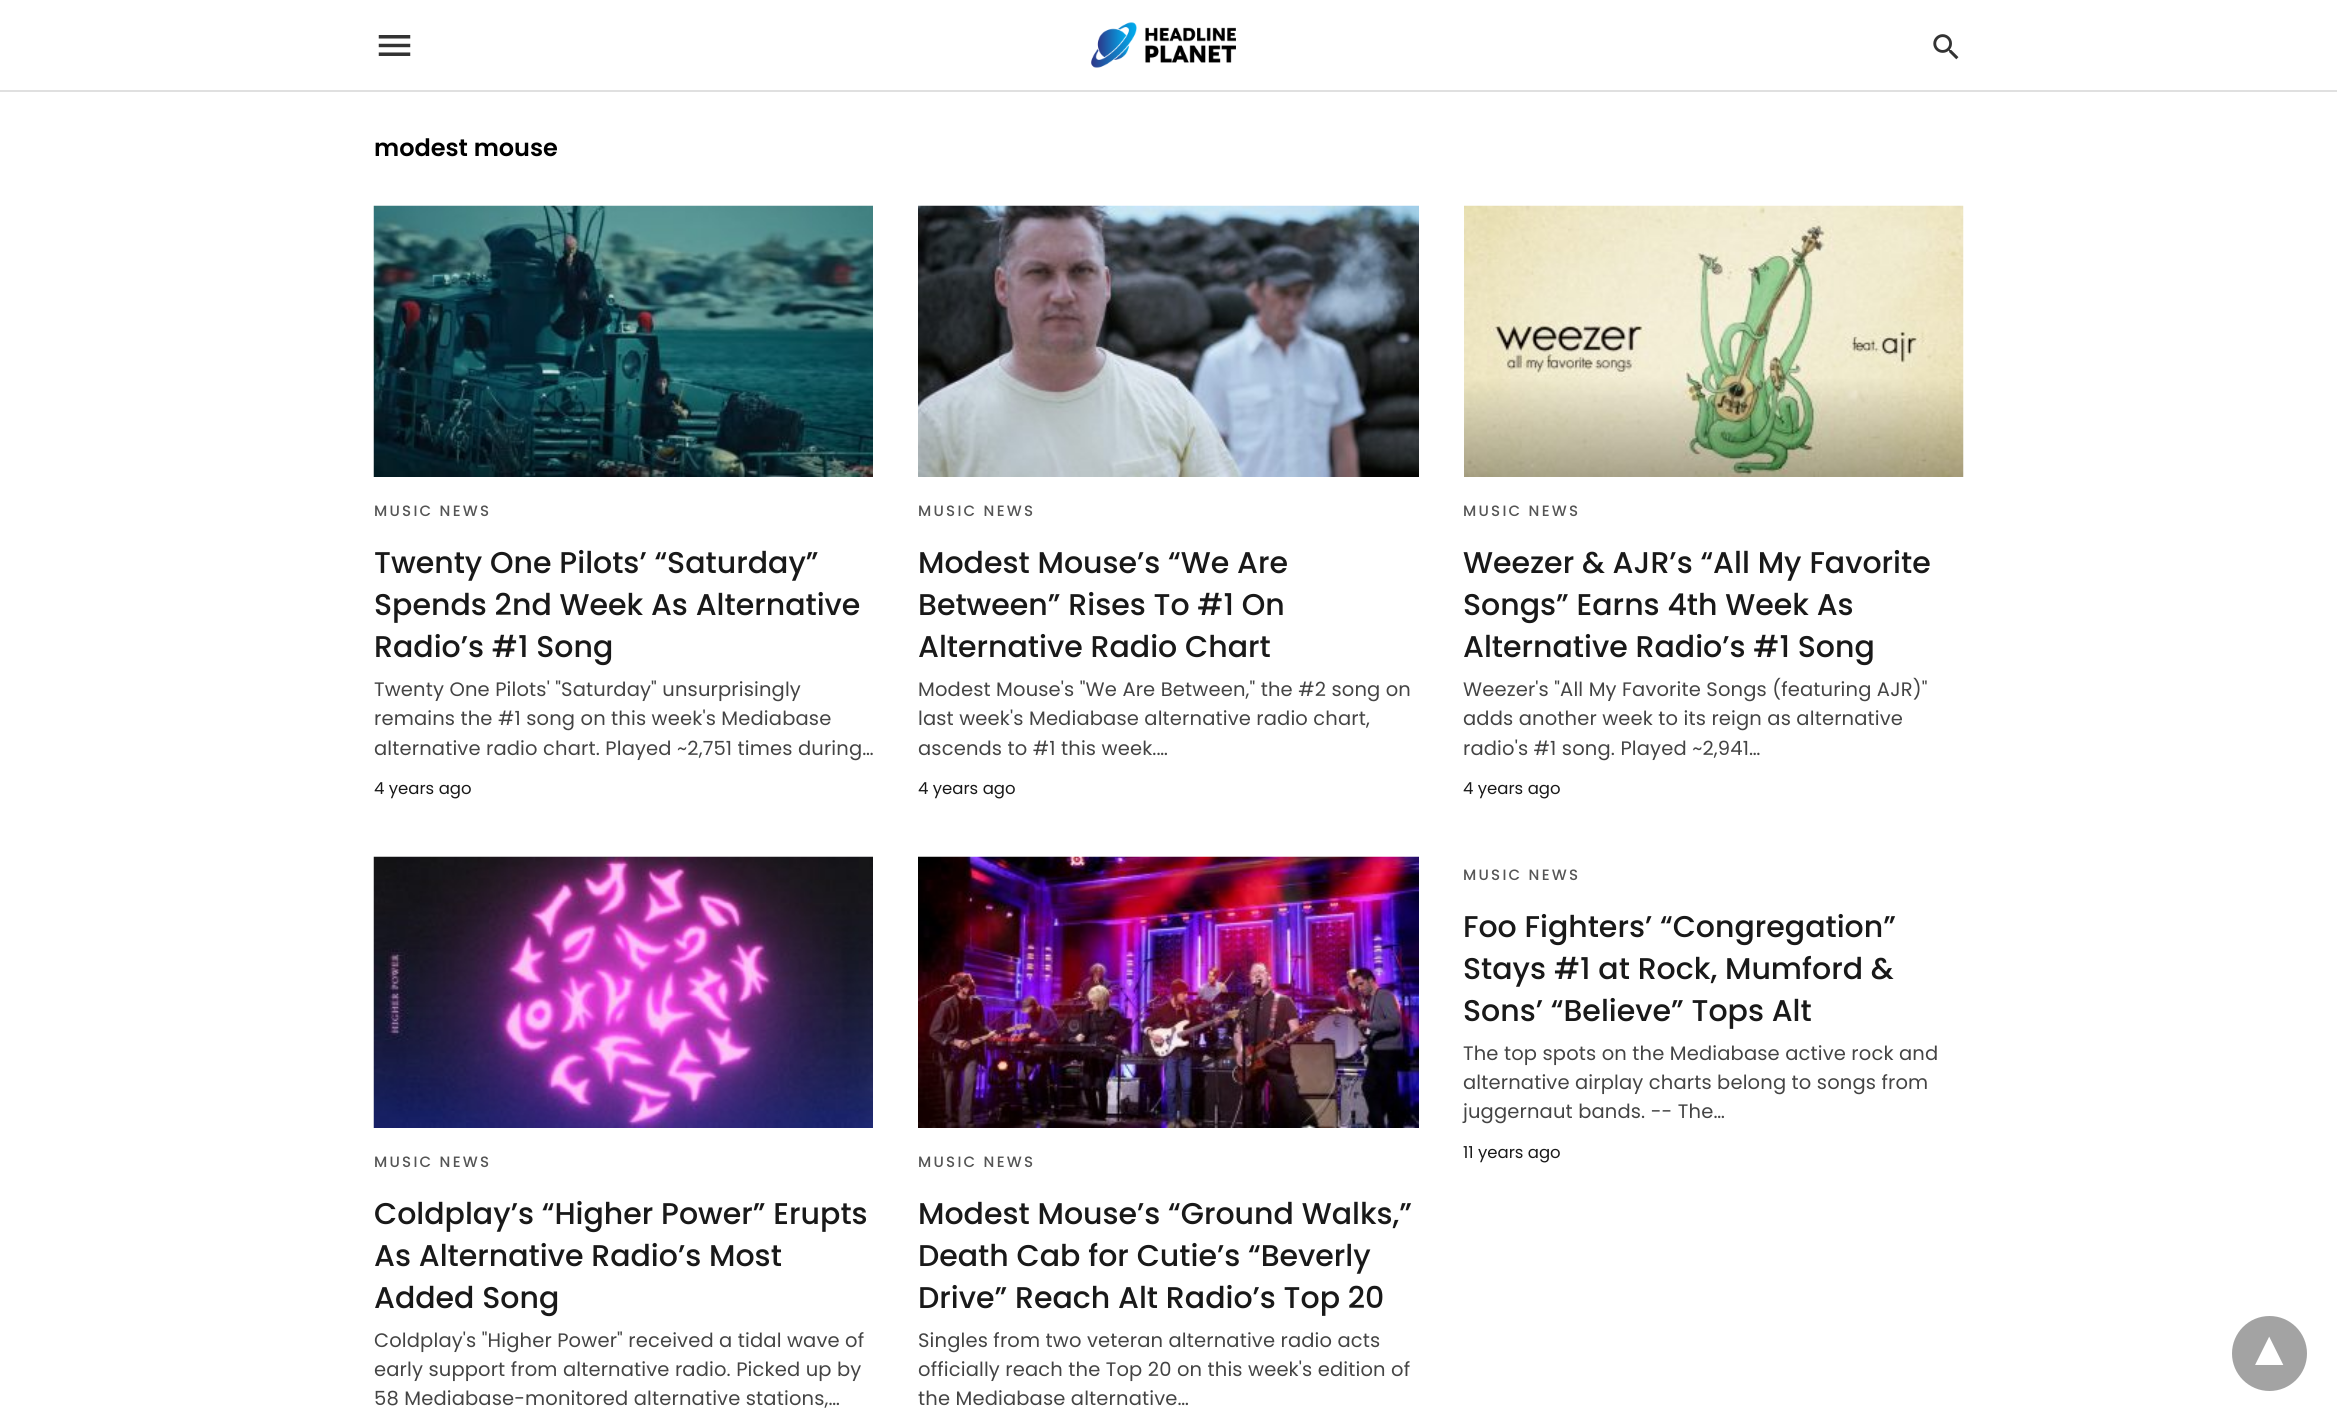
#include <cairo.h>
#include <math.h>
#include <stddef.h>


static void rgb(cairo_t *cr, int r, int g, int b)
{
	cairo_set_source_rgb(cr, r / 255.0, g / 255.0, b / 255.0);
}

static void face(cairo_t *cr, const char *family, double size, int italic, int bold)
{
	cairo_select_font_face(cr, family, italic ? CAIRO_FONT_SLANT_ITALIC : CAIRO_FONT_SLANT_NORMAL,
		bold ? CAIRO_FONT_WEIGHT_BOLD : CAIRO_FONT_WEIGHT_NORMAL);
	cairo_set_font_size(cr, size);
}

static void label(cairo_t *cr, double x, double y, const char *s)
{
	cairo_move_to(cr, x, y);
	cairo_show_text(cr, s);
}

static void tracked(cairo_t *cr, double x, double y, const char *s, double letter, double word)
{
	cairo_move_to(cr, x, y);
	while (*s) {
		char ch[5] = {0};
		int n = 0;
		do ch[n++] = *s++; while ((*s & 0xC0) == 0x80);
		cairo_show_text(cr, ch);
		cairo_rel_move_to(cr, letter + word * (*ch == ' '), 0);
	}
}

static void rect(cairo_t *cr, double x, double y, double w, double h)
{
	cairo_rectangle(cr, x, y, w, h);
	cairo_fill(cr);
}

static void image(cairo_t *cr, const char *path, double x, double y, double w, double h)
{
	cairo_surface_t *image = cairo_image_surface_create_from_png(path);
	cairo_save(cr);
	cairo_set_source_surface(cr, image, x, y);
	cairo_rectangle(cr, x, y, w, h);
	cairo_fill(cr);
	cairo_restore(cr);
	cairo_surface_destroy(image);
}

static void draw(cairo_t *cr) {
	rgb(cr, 255, 255, 255);
	cairo_paint(cr);
	rgb(cr, 224, 224, 224);
	rect(cr, 0, 90, 2337, 2);
	image(cr, "image0.png", 378, 35, 33, 21);
	image(cr, "image1.png", 1091, 22, 145, 46);
	image(cr, "image2.png", 1933, 34, 26, 26);
	face(cr, "Poppins SemiBold", 24, 0, 0);
	rgb(cr, 0, 0, 0);
	label(cr, 374, 156, "modest mouse");
	image(cr, "image3.png", 373, 205, 500, 272);
	face(cr, "Poppins Medium", 15, 0, 0);
	rgb(cr, 85, 85, 85);
	tracked(cr, 374, 516, "MUSIC NEWS", 2.25, 0);
	face(cr, "Poppins Medium", 30, 0, 0);
	rgb(cr, 25, 25, 25);
	label(cr, 374, 573, "Twenty One Pilots’ “Saturday”");
	label(cr, 374, 615, "Spends 2nd Week As Alternative");
	label(cr, 374, 657, "Radio’s #1 Song");
	face(cr, "Poppins", 19.5, 0, 0);
	rgb(cr, 68, 68, 68);
	tracked(cr, 374, 696, "Twenty One Pilots' \"Saturday\" unsurprisingly", 0.15, 0);
	tracked(cr, 374, 725, "remains the #1 song on this week's Mediabase", 0.15, 0);
	tracked(cr, 374, 755, "alternative radio chart. Played ~2,751 times during…", 0.15, 0);
	face(cr, "Poppins", 16.5, 0, 0);
	rgb(cr, 25, 25, 25);
	label(cr, 374, 794, "4 years ago");
	image(cr, "image4.png", 918, 205, 501, 272);
	face(cr, "Poppins Medium", 15, 0, 0);
	rgb(cr, 85, 85, 85);
	tracked(cr, 918, 516, "MUSIC NEWS", 2.25, 0);
	face(cr, "Poppins Medium", 30, 0, 0);
	rgb(cr, 25, 25, 25);
	label(cr, 918, 573, "Modest Mouse’s “We Are");
	label(cr, 918, 615, "Between” Rises To #1 On");
	label(cr, 918, 657, "Alternative Radio Chart");
	face(cr, "Poppins", 19.5, 0, 0);
	rgb(cr, 68, 68, 68);
	tracked(cr, 918, 696, "Modest Mouse's \"We Are Between,\" the #2 song on", 0.15, 0);
	tracked(cr, 918, 725, "last week's Mediabase alternative radio chart,", 0.15, 0);
	tracked(cr, 918, 755, "ascends to #1 this week.…", 0.15, 0);
	face(cr, "Poppins", 16.5, 0, 0);
	rgb(cr, 25, 25, 25);
	label(cr, 918, 794, "4 years ago");
	image(cr, "image5.png", 1464, 205, 500, 272);
	face(cr, "Poppins Medium", 15, 0, 0);
	rgb(cr, 85, 85, 85);
	tracked(cr, 1463, 516, "MUSIC NEWS", 2.25, 0);
	face(cr, "Poppins Medium", 30, 0, 0);
	rgb(cr, 25, 25, 25);
	label(cr, 1463, 573, "Weezer & AJR’s “All My Favorite");
	label(cr, 1463, 615, "Songs” Earns 4th Week As");
	label(cr, 1463, 657, "Alternative Radio’s #1 Song");
	face(cr, "Poppins", 19.5, 0, 0);
	rgb(cr, 68, 68, 68);
	tracked(cr, 1463, 696, "Weezer's \"All My Favorite Songs (featuring AJR)\"", 0.15, 0);
	tracked(cr, 1463, 725, "adds another week to its reign as alternative", 0.15, 0);
	tracked(cr, 1463, 755, "radio's #1 song. Played ~2,941…", 0.15, 0);
	face(cr, "Poppins", 16.5, 0, 0);
	rgb(cr, 25, 25, 25);
	label(cr, 1463, 794, "4 years ago");
	face(cr, "Poppins Medium", 15, 0, 0);
	rgb(cr, 85, 85, 85);
	tracked(cr, 1463, 880, "MUSIC NEWS", 2.25, 0);
	face(cr, "Poppins Medium", 30, 0, 0);
	rgb(cr, 25, 25, 25);
	label(cr, 1463, 937, "Foo Fighters’ “Congregation”");
	label(cr, 1463, 979, "Stays #1 at Rock, Mumford &");
	label(cr, 1463, 1021, "Sons’ “Believe” Tops Alt");
	face(cr, "Poppins", 19.5, 0, 0);
	rgb(cr, 68, 68, 68);
	tracked(cr, 1463, 1060, "The top spots on the Mediabase active rock and", 0.15, 0);
	tracked(cr, 1463, 1089, "alternative airplay charts belong to songs from", 0.15, 0);
	tracked(cr, 1463, 1118, "juggernaut bands. -- The…", 0.15, 0);
	face(cr, "Poppins", 16.5, 0, 0);
	rgb(cr, 25, 25, 25);
	label(cr, 1463, 1158, "11 years ago");
	image(cr, "image6.png", 373, 856, 500, 272);
	face(cr, "Poppins Medium", 15, 0, 0);
	rgb(cr, 85, 85, 85);
	tracked(cr, 374, 1167, "MUSIC NEWS", 2.25, 0);
	face(cr, "Poppins Medium", 30, 0, 0);
	rgb(cr, 25, 25, 25);
	label(cr, 374, 1224, "Coldplay’s “Higher Power” Erupts");
	label(cr, 374, 1266, "As Alternative Radio’s Most");
	label(cr, 374, 1308, "Added Song");
	face(cr, "Poppins", 19.5, 0, 0);
	rgb(cr, 68, 68, 68);
	tracked(cr, 374, 1347, "Coldplay's \"Higher Power\" received a tidal wave of", 0.15, 0);
	tracked(cr, 374, 1376, "early support from alternative radio. Picked up by", 0.15, 0);
	tracked(cr, 374, 1405, "58 Mediabase-monitored alternative stations,…", 0.15, 0);
	image(cr, "image7.png", 918, 856, 501, 272);
	face(cr, "Poppins Medium", 15, 0, 0);
	rgb(cr, 85, 85, 85);
	tracked(cr, 918, 1167, "MUSIC NEWS", 2.25, 0);
	face(cr, "Poppins Medium", 30, 0, 0);
	rgb(cr, 25, 25, 25);
	label(cr, 918, 1224, "Modest Mouse’s “Ground Walks,”");
	label(cr, 918, 1266, "Death Cab for Cutie’s “Beverly");
	label(cr, 918, 1308, "Drive” Reach Alt Radio’s Top 20");
	face(cr, "Poppins", 19.5, 0, 0);
	rgb(cr, 68, 68, 68);
	tracked(cr, 918, 1347, "Singles from two veteran alternative radio acts", 0.15, 0);
	tracked(cr, 918, 1376, "officially reach the Top 20 on this week's edition of", 0.15, 0);
	tracked(cr, 918, 1405, "the Mediabase alternative…", 0.15, 0);
	rgb(cr, 163, 163, 163);
	cairo_new_path(cr);
	cairo_arc(cr, 2269.5, 1353.5, 37.5, 0, 2 * M_PI);
	cairo_fill(cr);
	face(cr, "DejaVu Sans", 52, 0, 1);
	rgb(cr, 255, 255, 255);
	cairo_save(cr);
	cairo_translate(cr, 2283, 1337);
	cairo_rotate(cr, 180 * M_PI / 180);
	label(cr, 0, 0, "▾");
	cairo_restore(cr);
}

int main(void) {
	cairo_surface_t *surface = cairo_image_surface_create(CAIRO_FORMAT_RGB24, 2337, 1420);
	cairo_t *cr = cairo_create(surface);
	cairo_font_options_t *options = cairo_font_options_create();
	cairo_font_options_set_hint_metrics(options, CAIRO_HINT_METRICS_OFF);
	cairo_font_options_set_hint_style(options, CAIRO_HINT_STYLE_NONE);
	cairo_set_font_options(cr, options);
	cairo_set_miter_limit(cr, 4);
	draw(cr);
	cairo_surface_write_to_png(surface, "render.png");
	cairo_font_options_destroy(options);
	cairo_destroy(cr);
	cairo_surface_destroy(surface);
	return 0;
}
